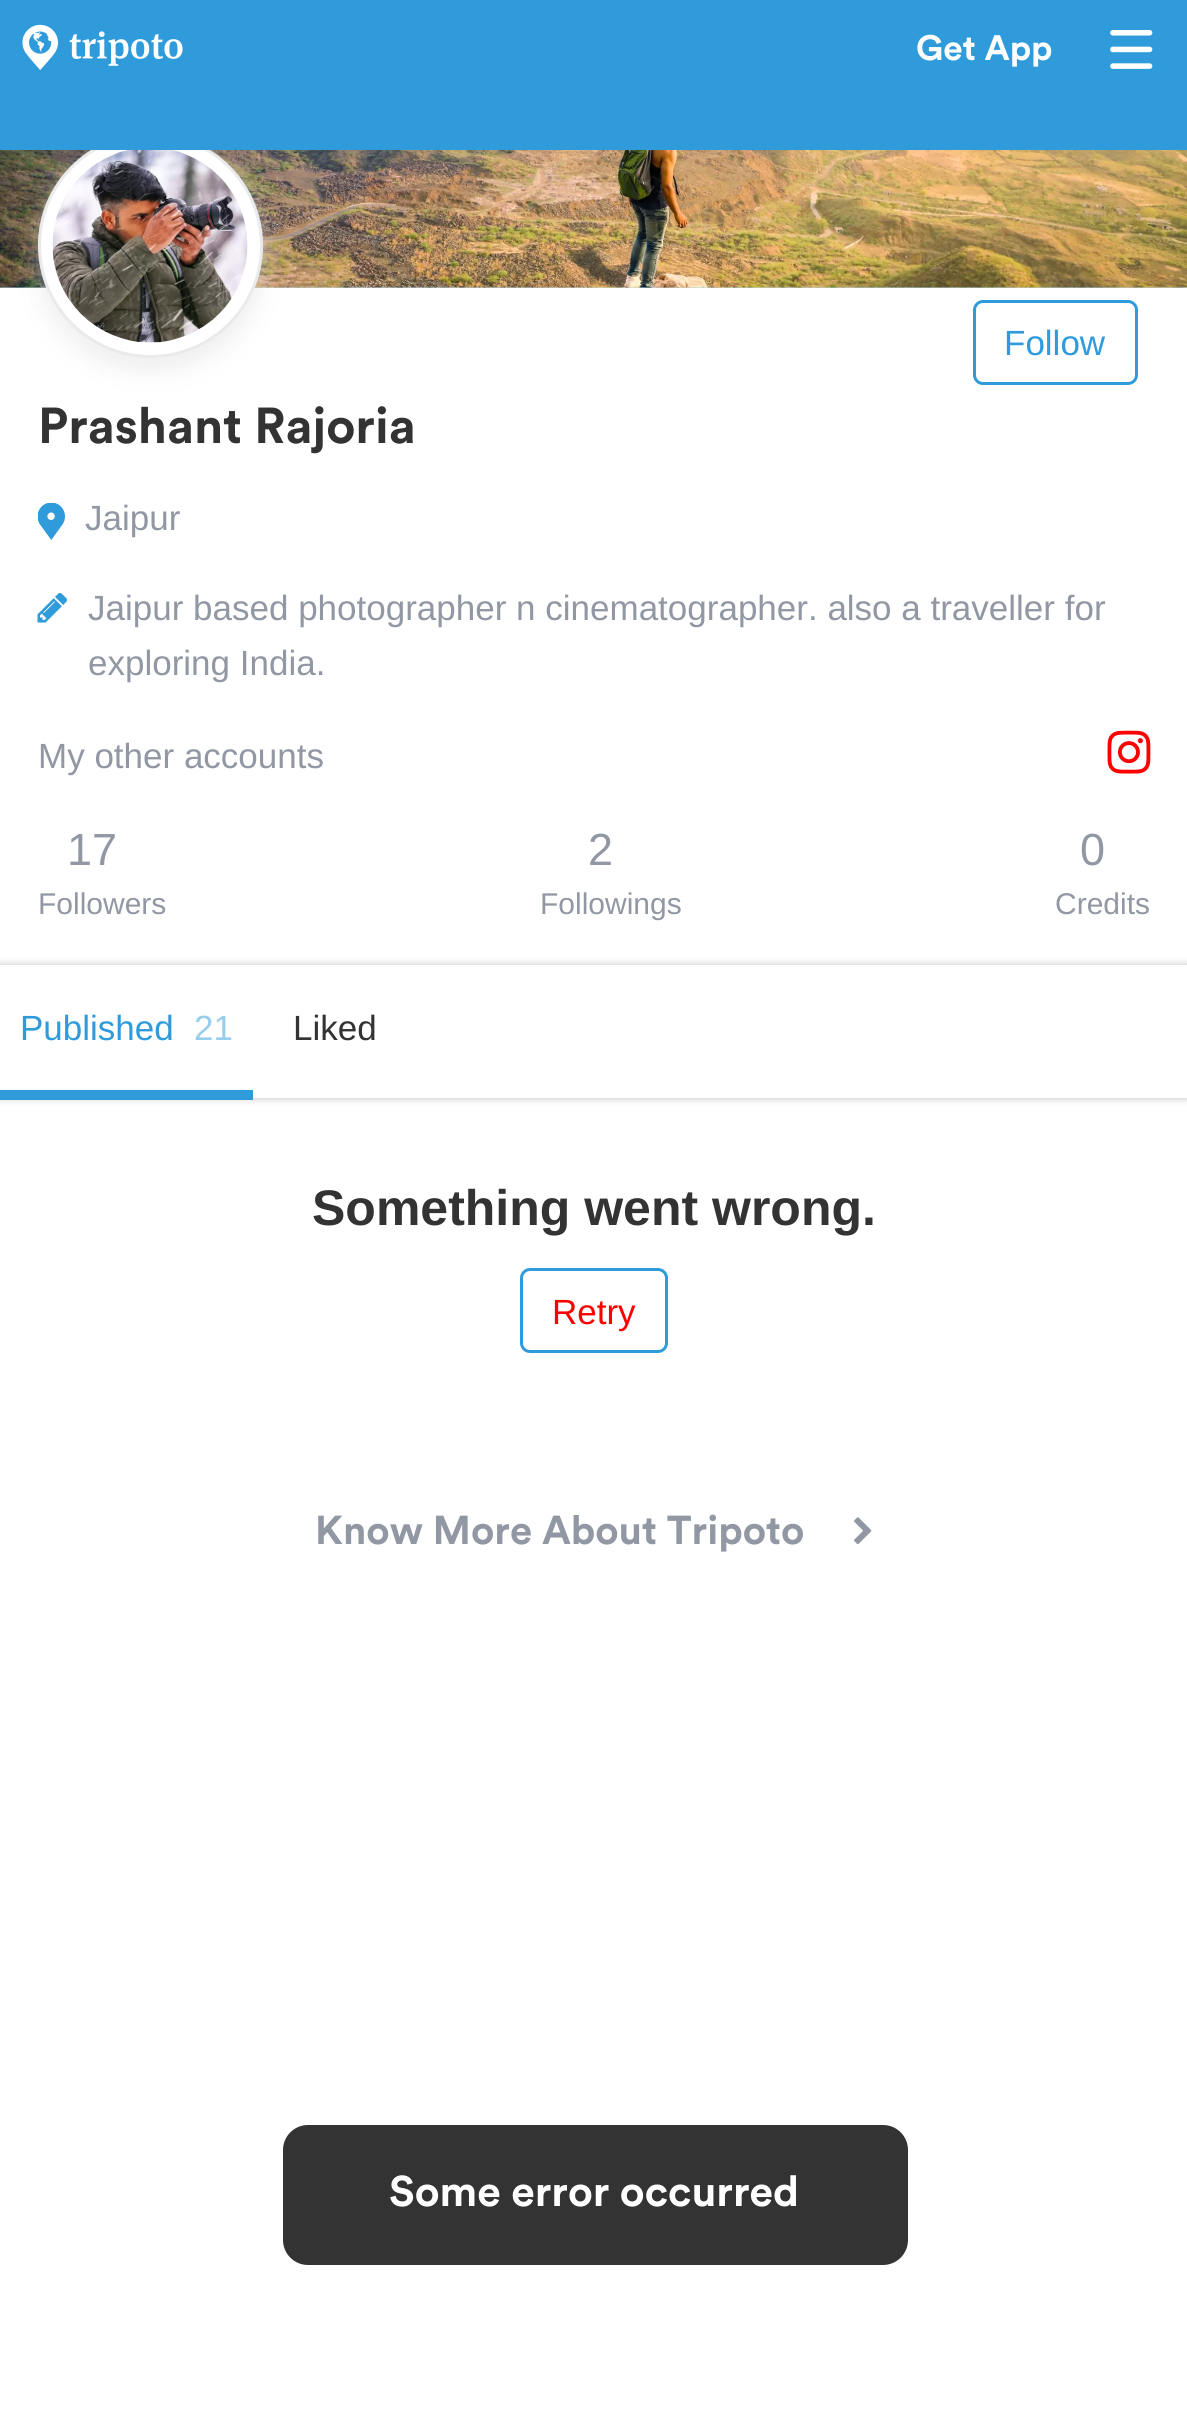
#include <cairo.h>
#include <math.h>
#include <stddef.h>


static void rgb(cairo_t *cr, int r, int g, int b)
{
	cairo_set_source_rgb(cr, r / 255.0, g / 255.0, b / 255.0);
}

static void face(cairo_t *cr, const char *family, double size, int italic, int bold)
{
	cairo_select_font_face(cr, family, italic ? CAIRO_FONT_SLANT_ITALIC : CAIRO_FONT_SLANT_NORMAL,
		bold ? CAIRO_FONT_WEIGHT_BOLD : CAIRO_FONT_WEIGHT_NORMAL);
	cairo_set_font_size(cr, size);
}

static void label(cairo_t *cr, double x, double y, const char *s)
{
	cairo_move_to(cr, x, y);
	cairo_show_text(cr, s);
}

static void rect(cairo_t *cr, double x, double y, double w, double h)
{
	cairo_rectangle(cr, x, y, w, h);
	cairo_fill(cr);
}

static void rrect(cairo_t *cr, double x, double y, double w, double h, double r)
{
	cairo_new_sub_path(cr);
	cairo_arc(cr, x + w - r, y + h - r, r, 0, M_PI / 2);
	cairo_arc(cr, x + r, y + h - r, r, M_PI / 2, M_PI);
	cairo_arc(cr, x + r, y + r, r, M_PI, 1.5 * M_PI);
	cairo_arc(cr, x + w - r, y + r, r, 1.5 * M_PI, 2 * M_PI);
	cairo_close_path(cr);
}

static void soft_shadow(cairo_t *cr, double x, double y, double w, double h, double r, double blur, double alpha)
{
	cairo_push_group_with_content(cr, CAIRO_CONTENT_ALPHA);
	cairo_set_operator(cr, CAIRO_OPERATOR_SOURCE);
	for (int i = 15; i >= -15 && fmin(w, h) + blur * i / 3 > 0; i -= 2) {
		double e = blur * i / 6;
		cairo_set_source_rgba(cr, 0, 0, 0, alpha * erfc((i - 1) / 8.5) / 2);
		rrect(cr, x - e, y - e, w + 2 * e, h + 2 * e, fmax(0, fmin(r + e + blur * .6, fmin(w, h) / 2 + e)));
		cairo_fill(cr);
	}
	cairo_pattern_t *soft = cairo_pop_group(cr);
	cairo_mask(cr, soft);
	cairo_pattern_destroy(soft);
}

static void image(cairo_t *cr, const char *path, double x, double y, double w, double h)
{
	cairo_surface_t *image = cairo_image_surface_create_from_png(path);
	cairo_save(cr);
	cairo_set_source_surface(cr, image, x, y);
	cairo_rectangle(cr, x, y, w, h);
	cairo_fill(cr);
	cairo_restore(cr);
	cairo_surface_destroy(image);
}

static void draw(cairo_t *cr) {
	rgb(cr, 255, 255, 255);
	cairo_paint(cr);
	rgb(cr, 176, 210, 223);
	rect(cr, 0, 287, 1187, 1);
	image(cr, "image2.png", 0, 150, 1187, 138);
	rgb(cr, 221, 221, 221);
	soft_shadow(cr, 38, 145, 225, 225, 112.5, 12.5, 0.5);
	rgb(cr, 255, 255, 255);
	cairo_arc(cr, 150.5, 245.5, 112.5, 0, 2 * M_PI);
	cairo_fill(cr);
	cairo_arc(cr, 150.5, 245.5, 111, 0, 2 * M_PI);
	cairo_set_source_rgba(cr, 0.569, 0.592, 0.639, 0.2);
	cairo_set_line_width(cr, 3);
	cairo_stroke(cr);
	rgb(cr, 47, 155, 219);
	rect(cr, 0, 0, 1187, 150);
	image(cr, "image0.png", 22, 24, 161, 46);
	face(cr, "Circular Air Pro", 35, 0, 1);
	rgb(cr, 255, 255, 255);
	label(cr, 916, 60, "Get App");
	image(cr, "image1.png", 1110, 30, 43, 39);
	image(cr, "image3.png", 52, 150, 196, 193);
	rrect(cr, 974.5, 301.5, 162, 82, 8.5);
	rgb(cr, 47, 155, 219);
	cairo_stroke(cr);
	face(cr, "Liberation Sans", 35, 0, 0);
	label(cr, 1004, 355, "Follow");
	face(cr, "Circular Air Pro", 50, 0, 1);
	rgb(cr, 51, 51, 51);
	label(cr, 38, 443, "Prashant Rajoria");
	image(cr, "image4.png", 38, 503, 27, 37);
	face(cr, "Liberation Sans", 35, 0, 0);
	rgb(cr, 145, 151, 163);
	label(cr, 85, 530, "Jaipur");
	image(cr, "image5.png", 37, 593, 30, 30);
	label(cr, 88, 620, "Jaipur based photographer n cinematographer. also a traveller for");
	label(cr, 88, 675, "exploring India.");
	label(cr, 38, 768, "My other accounts");
	image(cr, "image6.png", 1107, 730, 44, 44);
	face(cr, "Liberation Sans", 45, 0, 0);
	label(cr, 67, 865, "17");
	face(cr, "Liberation Sans", 30, 0, 0);
	label(cr, 38, 914, "Followers");
	face(cr, "Liberation Sans", 45, 0, 0);
	label(cr, 588, 865, "2");
	face(cr, "Liberation Sans", 30, 0, 0);
	label(cr, 540, 914, "Followings");
	face(cr, "Liberation Sans", 45, 0, 0);
	label(cr, 1080, 865, "0");
	face(cr, "Liberation Sans", 30, 0, 0);
	label(cr, 1055, 914, "Credits");
	rgb(cr, 0, 0, 0);
	soft_shadow(cr, 0, 965, 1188, 133, 0, 4, 0.25);
	rgb(cr, 255, 255, 255);
	rect(cr, 0, 965, 1187, 133);
	rgb(cr, 47, 155, 219);
	rect(cr, 0, 1090, 253, 10);
	face(cr, "Liberation Sans", 35, 0, 0);
	label(cr, 20, 1040, "Published");
	rgb(cr, 151, 205, 237);
	label(cr, 194, 1040, "21");
	rgb(cr, 51, 51, 51);
	label(cr, 293, 1040, "Liked");
	face(cr, "Liberation Sans", 50, 0, 1);
	label(cr, 312, 1225, "Something went wrong.");
	rrect(cr, 521.5, 1269.5, 145, 82, 8.5);
	rgb(cr, 47, 155, 219);
	cairo_stroke(cr);
	face(cr, "Liberation Sans", 35, 0, 0);
	rgb(cr, 255, 0, 0);
	label(cr, 552, 1324, "Retry");
	face(cr, "Circular Air Pro", 40, 0, 1);
	rgb(cr, 145, 151, 163);
	label(cr, 315, 1544, "Know More About Tripoto");
	image(cr, "image7.png", 854, 1517, 18, 28);
	rgb(cr, 51, 51, 51);
	rrect(cr, 283, 2125, 625, 140, 25);
	cairo_fill(cr);
	face(cr, "Circular Air Pro", 42.5, 0, 1);
	rgb(cr, 255, 255, 255);
	label(cr, 389, 2206, "Some error occurred");
}

int main(void) {
	cairo_surface_t *surface = cairo_image_surface_create(CAIRO_FORMAT_RGB24, 1187, 2409);
	cairo_t *cr = cairo_create(surface);
	cairo_font_options_t *options = cairo_font_options_create();
	cairo_font_options_set_hint_metrics(options, CAIRO_HINT_METRICS_OFF);
	cairo_font_options_set_hint_style(options, CAIRO_HINT_STYLE_NONE);
	cairo_set_font_options(cr, options);
	cairo_set_miter_limit(cr, 4);
	draw(cr);
	cairo_surface_write_to_png(surface, "render.png");
	cairo_font_options_destroy(options);
	cairo_destroy(cr);
	cairo_surface_destroy(surface);
	return 0;
}
